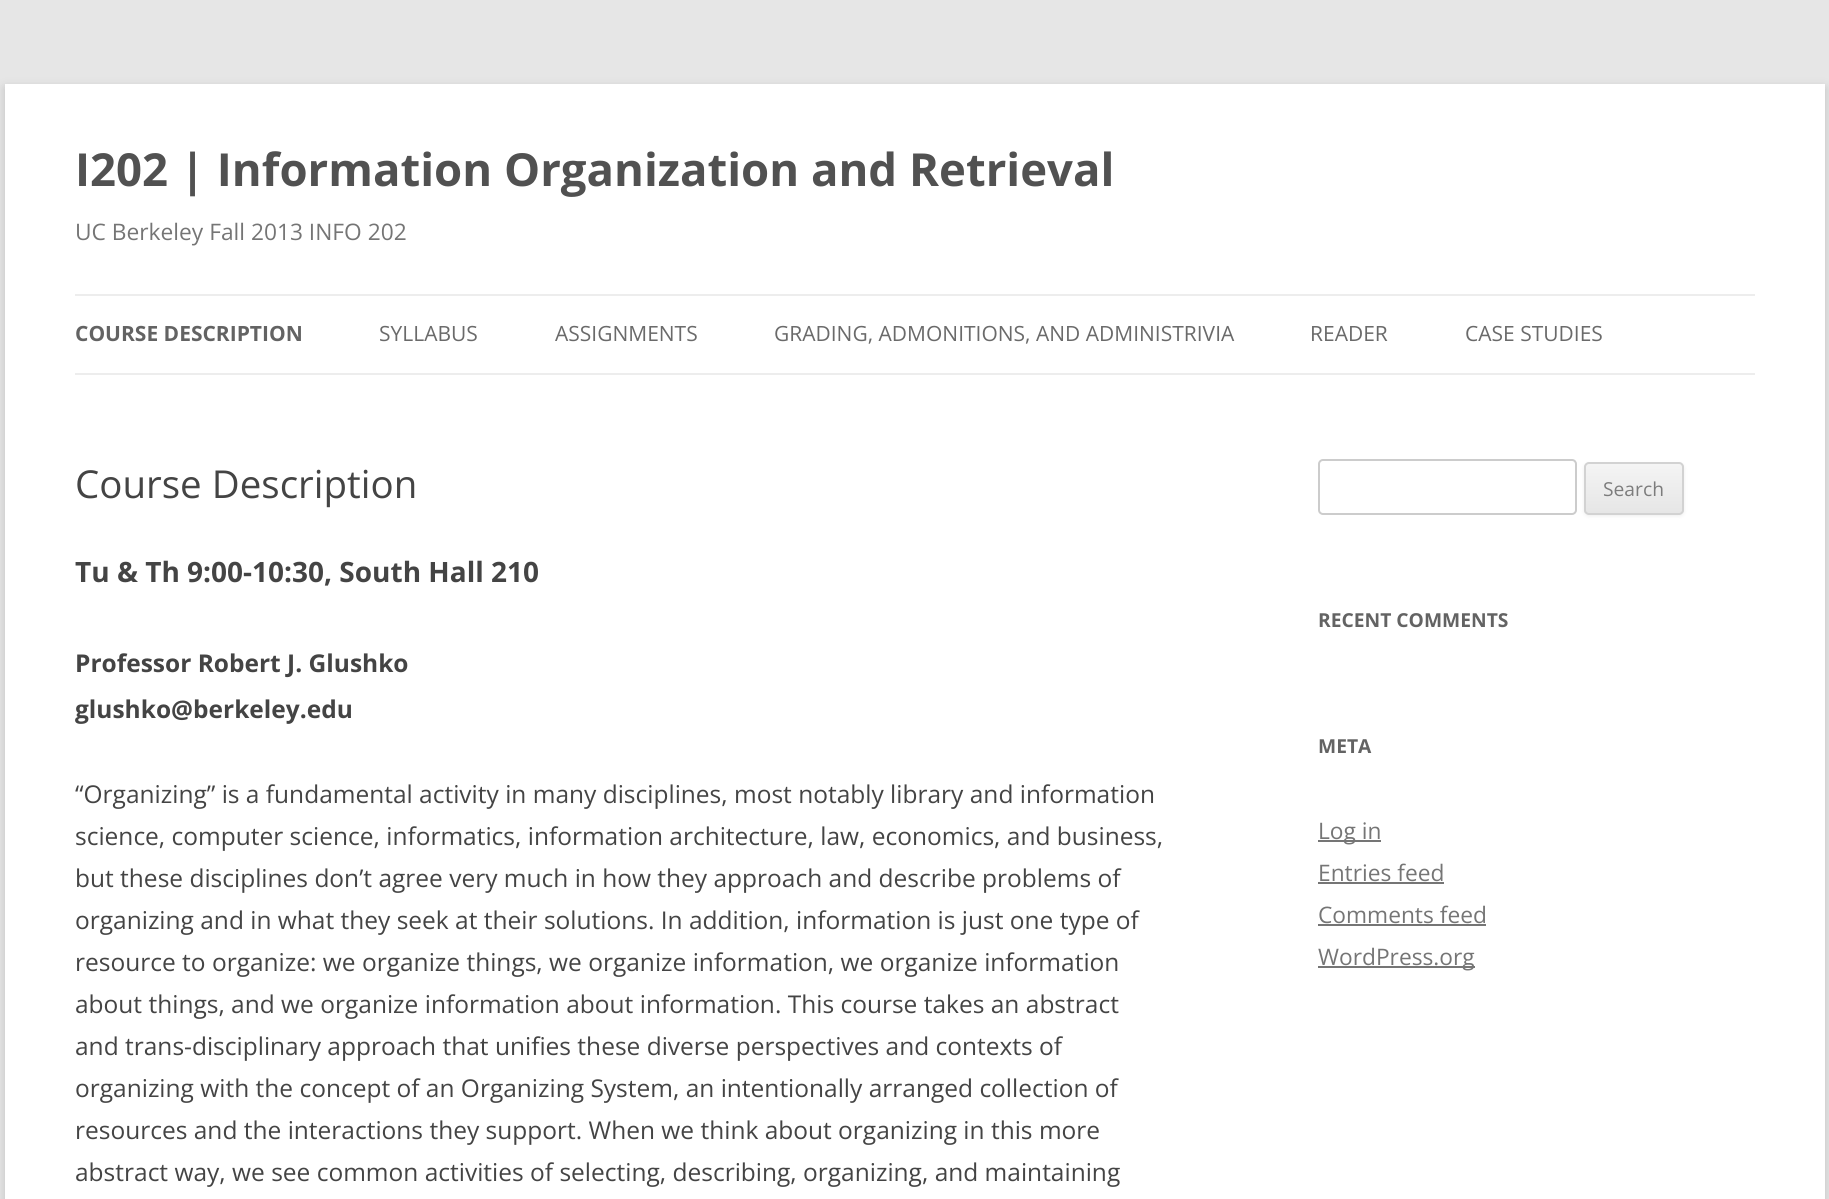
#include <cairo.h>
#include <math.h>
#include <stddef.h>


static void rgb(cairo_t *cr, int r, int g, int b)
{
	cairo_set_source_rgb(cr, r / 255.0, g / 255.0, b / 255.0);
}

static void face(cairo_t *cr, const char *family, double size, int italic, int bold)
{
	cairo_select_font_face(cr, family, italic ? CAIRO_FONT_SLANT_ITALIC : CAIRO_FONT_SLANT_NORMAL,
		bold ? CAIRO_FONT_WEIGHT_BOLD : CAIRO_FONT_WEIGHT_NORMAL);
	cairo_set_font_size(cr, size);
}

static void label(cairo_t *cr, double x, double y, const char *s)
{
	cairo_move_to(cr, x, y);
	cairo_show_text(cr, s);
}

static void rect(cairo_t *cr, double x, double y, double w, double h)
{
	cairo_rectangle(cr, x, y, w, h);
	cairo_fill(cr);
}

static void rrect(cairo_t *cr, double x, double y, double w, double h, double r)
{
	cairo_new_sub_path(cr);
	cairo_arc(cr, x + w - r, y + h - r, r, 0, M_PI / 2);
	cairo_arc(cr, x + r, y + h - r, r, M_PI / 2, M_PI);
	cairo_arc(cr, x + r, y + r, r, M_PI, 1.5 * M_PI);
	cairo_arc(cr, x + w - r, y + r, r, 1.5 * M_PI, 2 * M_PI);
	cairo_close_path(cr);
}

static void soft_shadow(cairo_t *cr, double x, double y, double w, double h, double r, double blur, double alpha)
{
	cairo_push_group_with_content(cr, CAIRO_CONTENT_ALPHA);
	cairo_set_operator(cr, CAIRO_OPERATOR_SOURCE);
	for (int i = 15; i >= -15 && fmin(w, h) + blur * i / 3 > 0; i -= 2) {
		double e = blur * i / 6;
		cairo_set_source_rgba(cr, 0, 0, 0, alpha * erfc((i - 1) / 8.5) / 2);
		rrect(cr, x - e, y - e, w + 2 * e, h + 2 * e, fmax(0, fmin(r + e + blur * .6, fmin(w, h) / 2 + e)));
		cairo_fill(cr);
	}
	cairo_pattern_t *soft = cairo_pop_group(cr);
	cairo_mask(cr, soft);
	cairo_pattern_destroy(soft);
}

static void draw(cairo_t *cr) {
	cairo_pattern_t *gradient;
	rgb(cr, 230, 230, 230);
	cairo_paint(cr);
	rgb(cr, 100, 100, 100);
	soft_shadow(cr, 5, 88, 1820, 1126, 0, 5, 0.3);
	rgb(cr, 255, 255, 255);
	rect(cr, 5, 84, 1820, 1115);
	face(cr, "Open Sans", 45.5, 0, 1);
	rgb(cr, 81, 81, 81);
	label(cr, 75, 186, "I202 | Information Organization and Retrieval");
	face(cr, "Open Sans", 22.75, 0, 0);
	rgb(cr, 117, 117, 117);
	label(cr, 75, 240, "UC Berkeley Fall 2013 INFO 202");
	rgb(cr, 237, 237, 237);
	rect(cr, 75, 294, 1680, 2);
	rect(cr, 75, 373, 1680, 2);
	face(cr, "Open Sans", 21, 0, 1);
	rgb(cr, 99, 99, 99);
	label(cr, 75, 341, "COURSE DESCRIPTION");
	face(cr, "Open Sans", 21, 0, 0);
	rgb(cr, 106, 106, 106);
	label(cr, 379, 341, "SYLLABUS");
	label(cr, 555, 341, "ASSIGNMENTS");
	label(cr, 774, 341, "GRADING, ADMONITIONS, AND ADMINISTRIVIA");
	label(cr, 1310, 341, "READER");
	label(cr, 1465, 341, "CASE STUDIES");
	face(cr, "Open Sans", 38.5, 0, 0);
	rgb(cr, 68, 68, 68);
	label(cr, 75, 498, "Course Description");
	face(cr, "Open Sans", 28, 0, 1);
	label(cr, 75, 582, "Tu & Th 9:00-10:30, South Hall 210");
	face(cr, "Open Sans", 24.5, 0, 1);
	label(cr, 75, 672, "Professor Robert J. Glushko");
	label(cr, 75, 718, "glushko@berkeley.edu");
	face(cr, "Open Sans", 24.5, 0, 0);
	label(cr, 75, 803, "“Organizing” is a fundamental activity in many disciplines, most notably library and information");
	label(cr, 75, 845, "science, computer science, informatics, information architecture, law, economics, and business,");
	label(cr, 75, 887, "but these disciplines don’t agree very much in how they approach and describe problems of");
	label(cr, 75, 929, "organizing and in what they seek at their solutions. In addition, information is just one type of");
	label(cr, 75, 971, "resource to organize: we organize things, we organize information, we organize information");
	label(cr, 75, 1013, "about things, and we organize information about information. This course takes an abstract");
	label(cr, 75, 1055, "and trans-disciplinary approach that unifies these diverse perspectives and contexts of");
	label(cr, 75, 1097, "organizing with the concept of an Organizing System, an intentionally arranged collection of");
	label(cr, 75, 1139, "resources and the interactions they support. When we think about organizing in this more");
	label(cr, 75, 1181, "abstract way, we see common activities of selecting, describing, organizing, and maintaining");
	rrect(cr, 1319, 460, 257, 54, 4);
	rgb(cr, 204, 204, 204);
	cairo_stroke(cr);
	rgb(cr, 64, 64, 64);
	soft_shadow(cr, 1584, 464, 100, 52, 5, 2, 0.1);
	cairo_save(cr);
	rrect(cr, 1584, 462, 100, 53, 5);
	cairo_clip(cr);
	gradient = cairo_pattern_create_linear(1634, 464, 1634, 513);
	cairo_pattern_add_color_stop_rgba(gradient, 0, 0.957, 0.957, 0.957, 1);
	cairo_pattern_add_color_stop_rgba(gradient, 1, 0.902, 0.902, 0.902, 1);
	cairo_set_source(cr, gradient);
	cairo_pattern_destroy(gradient);
	rect(cr, 1584, 464, 100, 49);
	cairo_restore(cr);
	rrect(cr, 1585, 463, 98, 51, 4);
	rgb(cr, 210, 210, 210);
	cairo_stroke(cr);
	face(cr, "Open Sans", 19.25, 0, 0);
	rgb(cr, 124, 124, 124);
	label(cr, 1603, 496, "Search");
	face(cr, "Open Sans", 19.25, 0, 1);
	rgb(cr, 99, 99, 99);
	label(cr, 1318, 627, "RECENT COMMENTS");
	label(cr, 1318, 753, "META");
	rgb(cr, 117, 117, 117);
	rect(cr, 1318, 840, 63, 2);
	face(cr, "Open Sans", 22.75, 0, 0);
	label(cr, 1318, 839, "Log in");
	label(cr, 1318, 881, "Entries feed");
	rect(cr, 1318, 882, 126, 2);
	label(cr, 1318, 923, "Comments feed");
	rect(cr, 1318, 924, 168, 2);
	rect(cr, 1318, 966, 157, 2);
	label(cr, 1318, 965, "WordPress.org");
}

int main(void) {
	cairo_surface_t *surface = cairo_image_surface_create(CAIRO_FORMAT_RGB24, 1829, 1199);
	cairo_t *cr = cairo_create(surface);
	cairo_font_options_t *options = cairo_font_options_create();
	cairo_font_options_set_hint_metrics(options, CAIRO_HINT_METRICS_OFF);
	cairo_font_options_set_hint_style(options, CAIRO_HINT_STYLE_NONE);
	cairo_set_font_options(cr, options);
	cairo_set_miter_limit(cr, 4);
	draw(cr);
	cairo_surface_write_to_png(surface, "render.png");
	cairo_font_options_destroy(options);
	cairo_destroy(cr);
	cairo_surface_destroy(surface);
	return 0;
}
